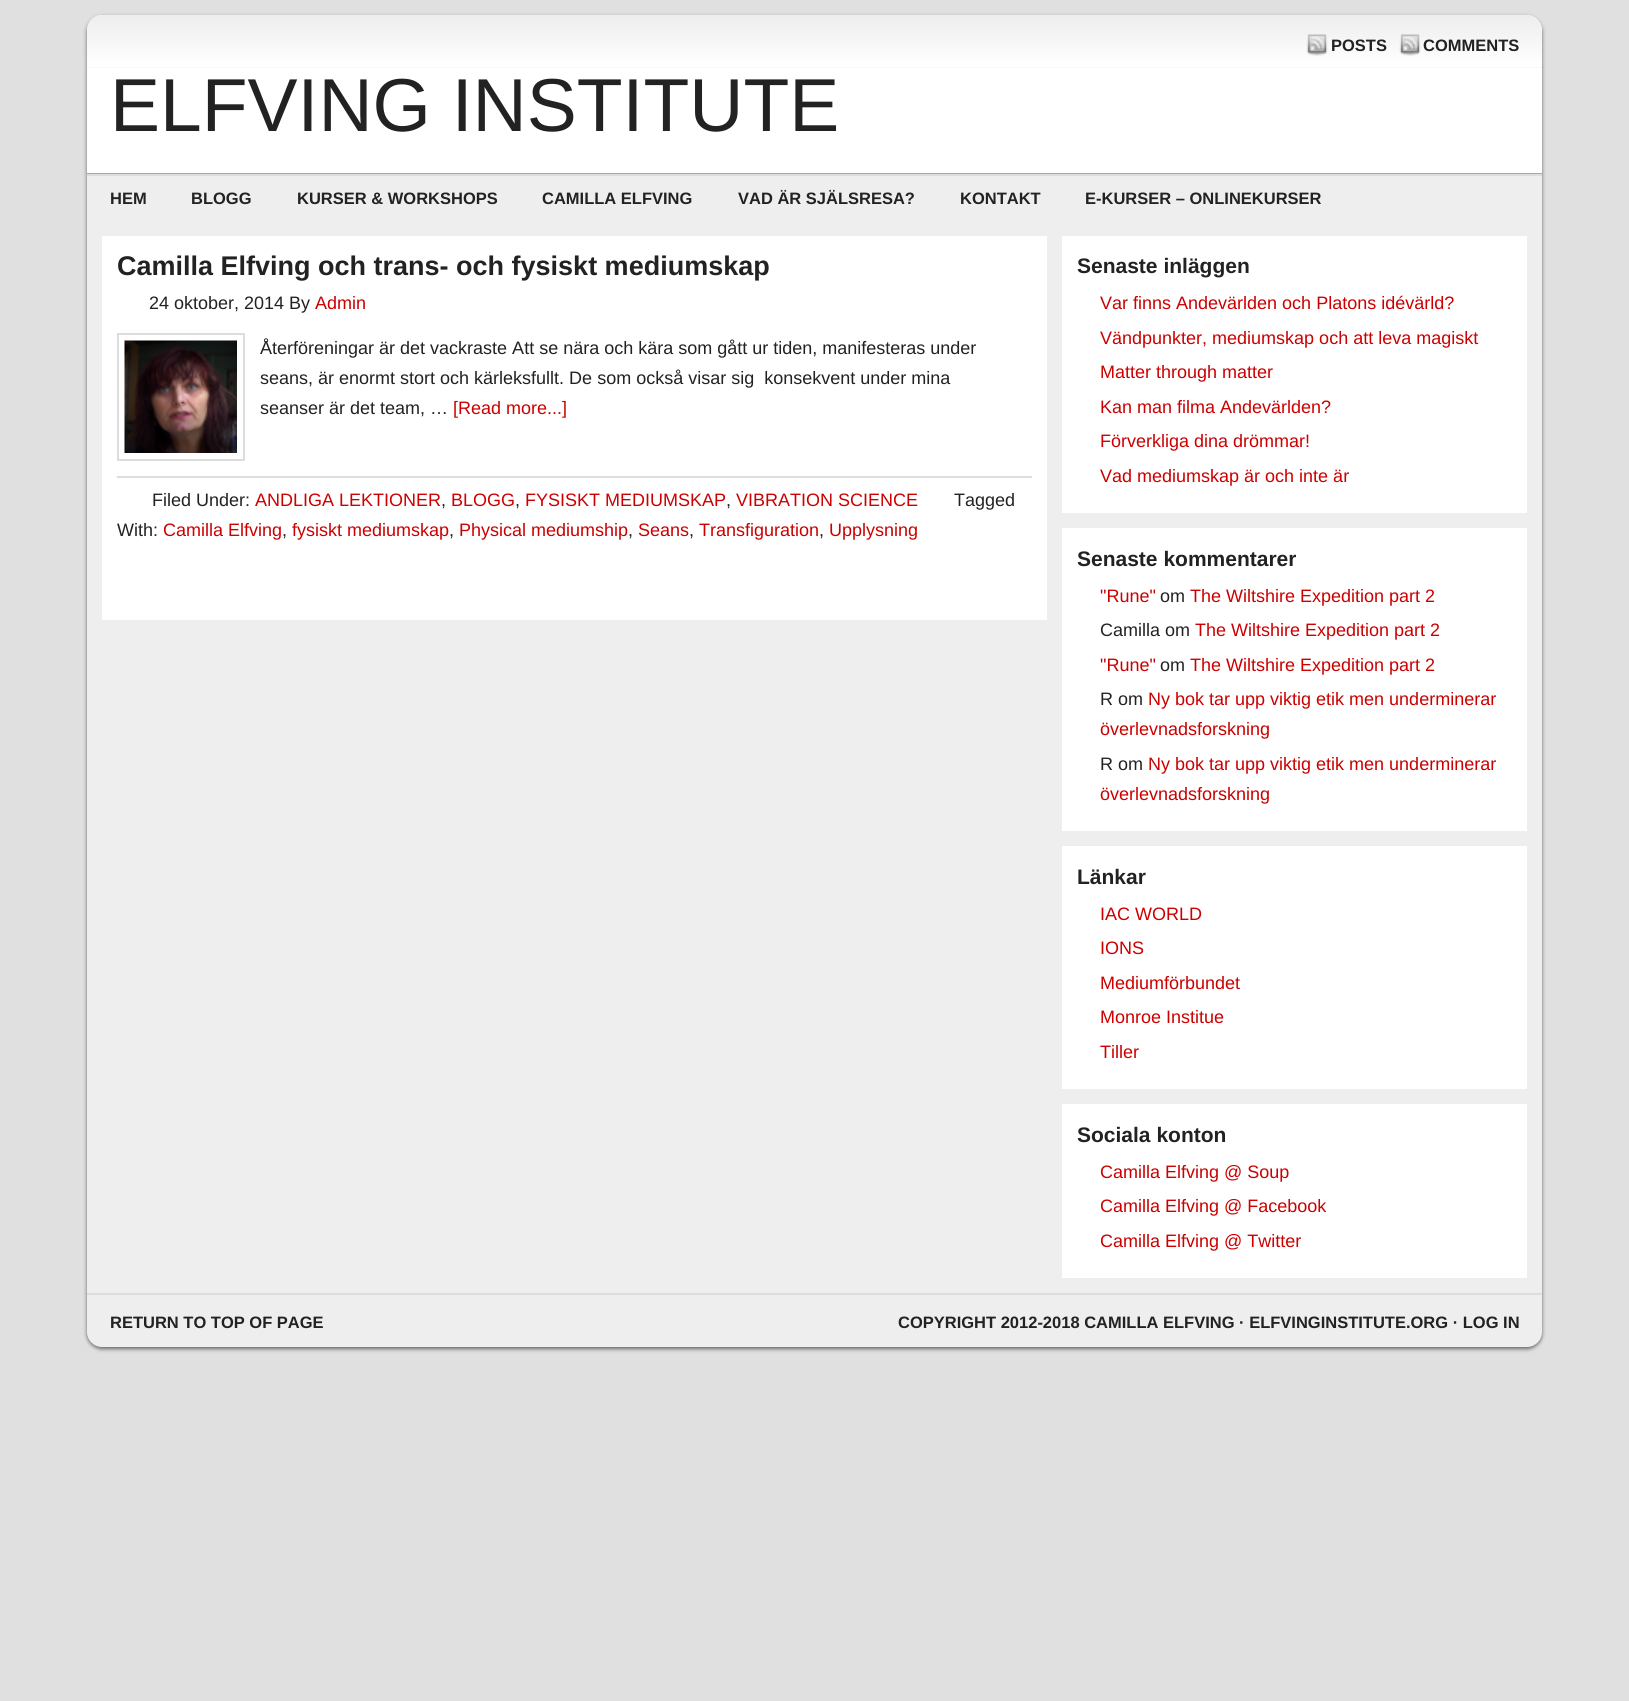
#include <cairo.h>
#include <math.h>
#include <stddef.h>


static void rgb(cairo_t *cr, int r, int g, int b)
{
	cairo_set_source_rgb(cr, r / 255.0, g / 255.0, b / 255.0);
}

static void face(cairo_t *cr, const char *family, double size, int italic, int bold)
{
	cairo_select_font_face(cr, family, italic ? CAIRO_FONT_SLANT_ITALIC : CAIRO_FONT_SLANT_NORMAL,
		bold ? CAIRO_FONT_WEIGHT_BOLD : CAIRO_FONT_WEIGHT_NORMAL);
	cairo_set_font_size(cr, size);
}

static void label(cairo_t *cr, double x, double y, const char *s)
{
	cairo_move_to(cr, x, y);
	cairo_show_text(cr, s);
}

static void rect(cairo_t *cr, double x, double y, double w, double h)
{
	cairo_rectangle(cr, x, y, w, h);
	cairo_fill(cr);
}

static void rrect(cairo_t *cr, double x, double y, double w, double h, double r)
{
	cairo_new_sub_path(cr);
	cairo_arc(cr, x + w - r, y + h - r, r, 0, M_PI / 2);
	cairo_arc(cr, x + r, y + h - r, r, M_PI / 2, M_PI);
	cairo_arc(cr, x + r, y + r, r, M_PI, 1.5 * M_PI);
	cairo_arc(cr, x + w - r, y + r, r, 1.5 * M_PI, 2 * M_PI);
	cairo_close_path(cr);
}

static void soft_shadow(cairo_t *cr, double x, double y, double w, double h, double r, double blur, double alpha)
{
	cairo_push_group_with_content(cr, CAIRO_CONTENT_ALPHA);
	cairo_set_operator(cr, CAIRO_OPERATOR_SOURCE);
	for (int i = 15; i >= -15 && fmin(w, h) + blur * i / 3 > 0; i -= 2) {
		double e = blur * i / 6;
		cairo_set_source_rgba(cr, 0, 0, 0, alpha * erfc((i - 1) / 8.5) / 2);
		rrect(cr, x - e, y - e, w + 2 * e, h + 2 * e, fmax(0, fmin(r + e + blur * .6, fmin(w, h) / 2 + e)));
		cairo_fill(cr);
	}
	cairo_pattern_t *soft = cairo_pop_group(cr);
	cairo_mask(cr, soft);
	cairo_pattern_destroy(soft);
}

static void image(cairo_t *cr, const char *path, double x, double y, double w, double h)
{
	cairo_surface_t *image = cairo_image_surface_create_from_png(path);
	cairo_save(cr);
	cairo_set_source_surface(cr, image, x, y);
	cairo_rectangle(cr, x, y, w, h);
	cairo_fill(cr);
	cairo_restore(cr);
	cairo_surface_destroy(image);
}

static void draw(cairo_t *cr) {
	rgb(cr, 225, 224, 224);
	cairo_paint(cr);
	rgb(cr, 102, 102, 102);
	soft_shadow(cr, 87, 17, 1455, 1332, 15, 2, 1);
	rgb(cr, 238, 238, 238);
	rrect(cr, 87, 15, 1455, 1332, 15);
	cairo_fill(cr);
	image(cr, "image0.png", 87, 15, 1455, 53);
	image(cr, "image1.png", 1306, 34, 22, 22);
	face(cr, "Liberation Sans", 16.5, 0, 1);
	rgb(cr, 34, 34, 34);
	label(cr, 1331, 51, "POSTS");
	image(cr, "image1.png", 1399, 34, 22, 22);
	label(cr, 1423, 51, "COMMENTS");
	rgb(cr, 255, 255, 255);
	rect(cr, 87, 68, 1455, 105);
	rgb(cr, 170, 170, 170);
	rect(cr, 87, 173, 1455, 1);
	face(cr, "Liberation Sans", 75, 0, 0);
	rgb(cr, 34, 34, 34);
	label(cr, 110, 131, "ELFVING INSTITUTE");
	rgb(cr, 221, 221, 221);
	rect(cr, 87, 174, 1455, 2);
	face(cr, "Liberation Sans", 16.5, 0, 1);
	rgb(cr, 34, 34, 34);
	label(cr, 110, 204, "HEM");
	label(cr, 191, 204, "BLOGG");
	label(cr, 297, 204, "KURSER & WORKSHOPS");
	label(cr, 542, 204, "CAMILLA ELFVING");
	label(cr, 738, 204, "VAD ÄR SJÄLSRESA?");
	label(cr, 960, 204, "KONTAKT");
	label(cr, 1085, 204, "E-KURSER – ONLINEKURSER");
	rgb(cr, 255, 255, 255);
	rect(cr, 102, 236, 945, 384);
	face(cr, "Liberation Sans", 27, 0, 1);
	rgb(cr, 34, 34, 34);
	label(cr, 117, 275, "Camilla Elfving och trans- och fysiskt mediumskap");
	face(cr, "Liberation Sans", 18, 0, 0);
	label(cr, 149, 309, "24 oktober, 2014 By");
	rgb(cr, 204, 0, 0);
	label(cr, 315, 309, "Admin");
	cairo_rectangle(cr, 118, 334, 126, 126);
	rgb(cr, 221, 221, 221);
	cairo_stroke(cr);
	image(cr, "image2.png", 124, 340, 113, 113);
	rgb(cr, 34, 34, 34);
	label(cr, 260, 354, "Återföreningar är det vackraste Att se nära och kära som gått ur tiden, manifesteras under");
	label(cr, 260, 384, "seans, är enormt stort och kärleksfullt. De som också visar sig  konsekvent under mina");
	label(cr, 260, 414, "seanser är det team, …");
	rgb(cr, 204, 0, 0);
	label(cr, 453, 414, "[Read more...]");
	rgb(cr, 221, 221, 221);
	rect(cr, 117, 476, 915, 2);
	rgb(cr, 34, 34, 34);
	label(cr, 152, 506, "Filed Under:");
	rgb(cr, 204, 0, 0);
	label(cr, 255, 506, "ANDLIGA LEKTIONER");
	rgb(cr, 34, 34, 34);
	label(cr, 441, 506, ",");
	rgb(cr, 204, 0, 0);
	label(cr, 451, 506, "BLOGG");
	rgb(cr, 34, 34, 34);
	label(cr, 515, 506, ",");
	rgb(cr, 204, 0, 0);
	label(cr, 525, 506, "FYSISKT MEDIUMSKAP");
	rgb(cr, 34, 34, 34);
	label(cr, 726, 506, ",");
	rgb(cr, 204, 0, 0);
	label(cr, 736, 506, "VIBRATION SCIENCE");
	rgb(cr, 34, 34, 34);
	label(cr, 954, 506, "Tagged");
	label(cr, 117, 536, "With:");
	rgb(cr, 204, 0, 0);
	label(cr, 163, 536, "Camilla Elfving");
	rgb(cr, 34, 34, 34);
	label(cr, 282, 536, ",");
	rgb(cr, 204, 0, 0);
	label(cr, 292, 536, "fysiskt mediumskap");
	rgb(cr, 34, 34, 34);
	label(cr, 449, 536, ",");
	rgb(cr, 204, 0, 0);
	label(cr, 459, 536, "Physical mediumship");
	rgb(cr, 34, 34, 34);
	label(cr, 628, 536, ",");
	rgb(cr, 204, 0, 0);
	label(cr, 638, 536, "Seans");
	rgb(cr, 34, 34, 34);
	label(cr, 689, 536, ",");
	rgb(cr, 204, 0, 0);
	label(cr, 699, 536, "Transfiguration");
	rgb(cr, 34, 34, 34);
	label(cr, 819, 536, ",");
	rgb(cr, 204, 0, 0);
	label(cr, 829, 536, "Upplysning");
	rgb(cr, 255, 255, 255);
	rect(cr, 1062, 236, 465, 277);
	face(cr, "Liberation Sans", 21, 0, 1);
	rgb(cr, 34, 34, 34);
	label(cr, 1077, 273, "Senaste inläggen");
	face(cr, "Liberation Sans", 18, 0, 0);
	rgb(cr, 204, 0, 0);
	label(cr, 1100, 309, "Var finns Andevärlden och Platons idévärld?");
	label(cr, 1100, 344, "Vändpunkter, mediumskap och att leva magiskt");
	label(cr, 1100, 378, "Matter through matter");
	label(cr, 1100, 413, "Kan man filma Andevärlden?");
	label(cr, 1100, 447, "Förverkliga dina drömmar!");
	label(cr, 1100, 482, "Vad mediumskap är och inte är");
	rgb(cr, 255, 255, 255);
	rect(cr, 1062, 528, 465, 303);
	face(cr, "Liberation Sans", 21, 0, 1);
	rgb(cr, 34, 34, 34);
	label(cr, 1077, 566, "Senaste kommentarer");
	face(cr, "Liberation Sans", 18, 0, 0);
	rgb(cr, 204, 0, 0);
	label(cr, 1100, 602, "\"Rune\"");
	rgb(cr, 34, 34, 34);
	label(cr, 1160, 602, "om");
	rgb(cr, 204, 0, 0);
	label(cr, 1190, 602, "The Wiltshire Expedition part 2");
	rgb(cr, 34, 34, 34);
	label(cr, 1100, 636, "Camilla om");
	rgb(cr, 204, 0, 0);
	label(cr, 1195, 636, "The Wiltshire Expedition part 2");
	label(cr, 1100, 671, "\"Rune\"");
	rgb(cr, 34, 34, 34);
	label(cr, 1160, 671, "om");
	rgb(cr, 204, 0, 0);
	label(cr, 1190, 671, "The Wiltshire Expedition part 2");
	rgb(cr, 34, 34, 34);
	label(cr, 1100, 705, "R om");
	rgb(cr, 204, 0, 0);
	label(cr, 1148, 705, "Ny bok tar upp viktig etik men underminerar");
	label(cr, 1100, 735, "överlevnadsforskning");
	rgb(cr, 34, 34, 34);
	label(cr, 1100, 770, "R om");
	rgb(cr, 204, 0, 0);
	label(cr, 1148, 770, "Ny bok tar upp viktig etik men underminerar");
	label(cr, 1100, 800, "överlevnadsforskning");
	rgb(cr, 255, 255, 255);
	rect(cr, 1062, 846, 465, 243);
	face(cr, "Liberation Sans", 21, 0, 1);
	rgb(cr, 34, 34, 34);
	label(cr, 1077, 884, "Länkar");
	face(cr, "Liberation Sans", 18, 0, 0);
	rgb(cr, 204, 0, 0);
	label(cr, 1100, 920, "IAC WORLD");
	label(cr, 1100, 954, "IONS");
	label(cr, 1100, 989, "Mediumförbundet");
	label(cr, 1100, 1023, "Monroe Institue");
	label(cr, 1100, 1058, "Tiller");
	rgb(cr, 255, 255, 255);
	rect(cr, 1062, 1104, 465, 174);
	face(cr, "Liberation Sans", 21, 0, 1);
	rgb(cr, 34, 34, 34);
	label(cr, 1077, 1142, "Sociala konton");
	face(cr, "Liberation Sans", 18, 0, 0);
	rgb(cr, 204, 0, 0);
	label(cr, 1100, 1178, "Camilla Elfving @ Soup");
	label(cr, 1100, 1212, "Camilla Elfving @ Facebook");
	label(cr, 1100, 1247, "Camilla Elfving @ Twitter");
	rgb(cr, 221, 221, 221);
	rect(cr, 87, 1293, 1455, 2);
	face(cr, "Liberation Sans", 16.5, 0, 1);
	rgb(cr, 34, 34, 34);
	label(cr, 110, 1328, "RETURN TO TOP OF PAGE");
	label(cr, 898, 1328, "COPYRIGHT 2012-2018 CAMILLA ELFVING · ELFVINGINSTITUTE.ORG · LOG IN");
}

int main(void) {
	cairo_surface_t *surface = cairo_image_surface_create(CAIRO_FORMAT_RGB24, 1629, 1701);
	cairo_t *cr = cairo_create(surface);
	cairo_font_options_t *options = cairo_font_options_create();
	cairo_font_options_set_hint_metrics(options, CAIRO_HINT_METRICS_OFF);
	cairo_font_options_set_hint_style(options, CAIRO_HINT_STYLE_NONE);
	cairo_set_font_options(cr, options);
	cairo_set_miter_limit(cr, 4);
	draw(cr);
	cairo_surface_write_to_png(surface, "render.png");
	cairo_font_options_destroy(options);
	cairo_destroy(cr);
	cairo_surface_destroy(surface);
	return 0;
}
